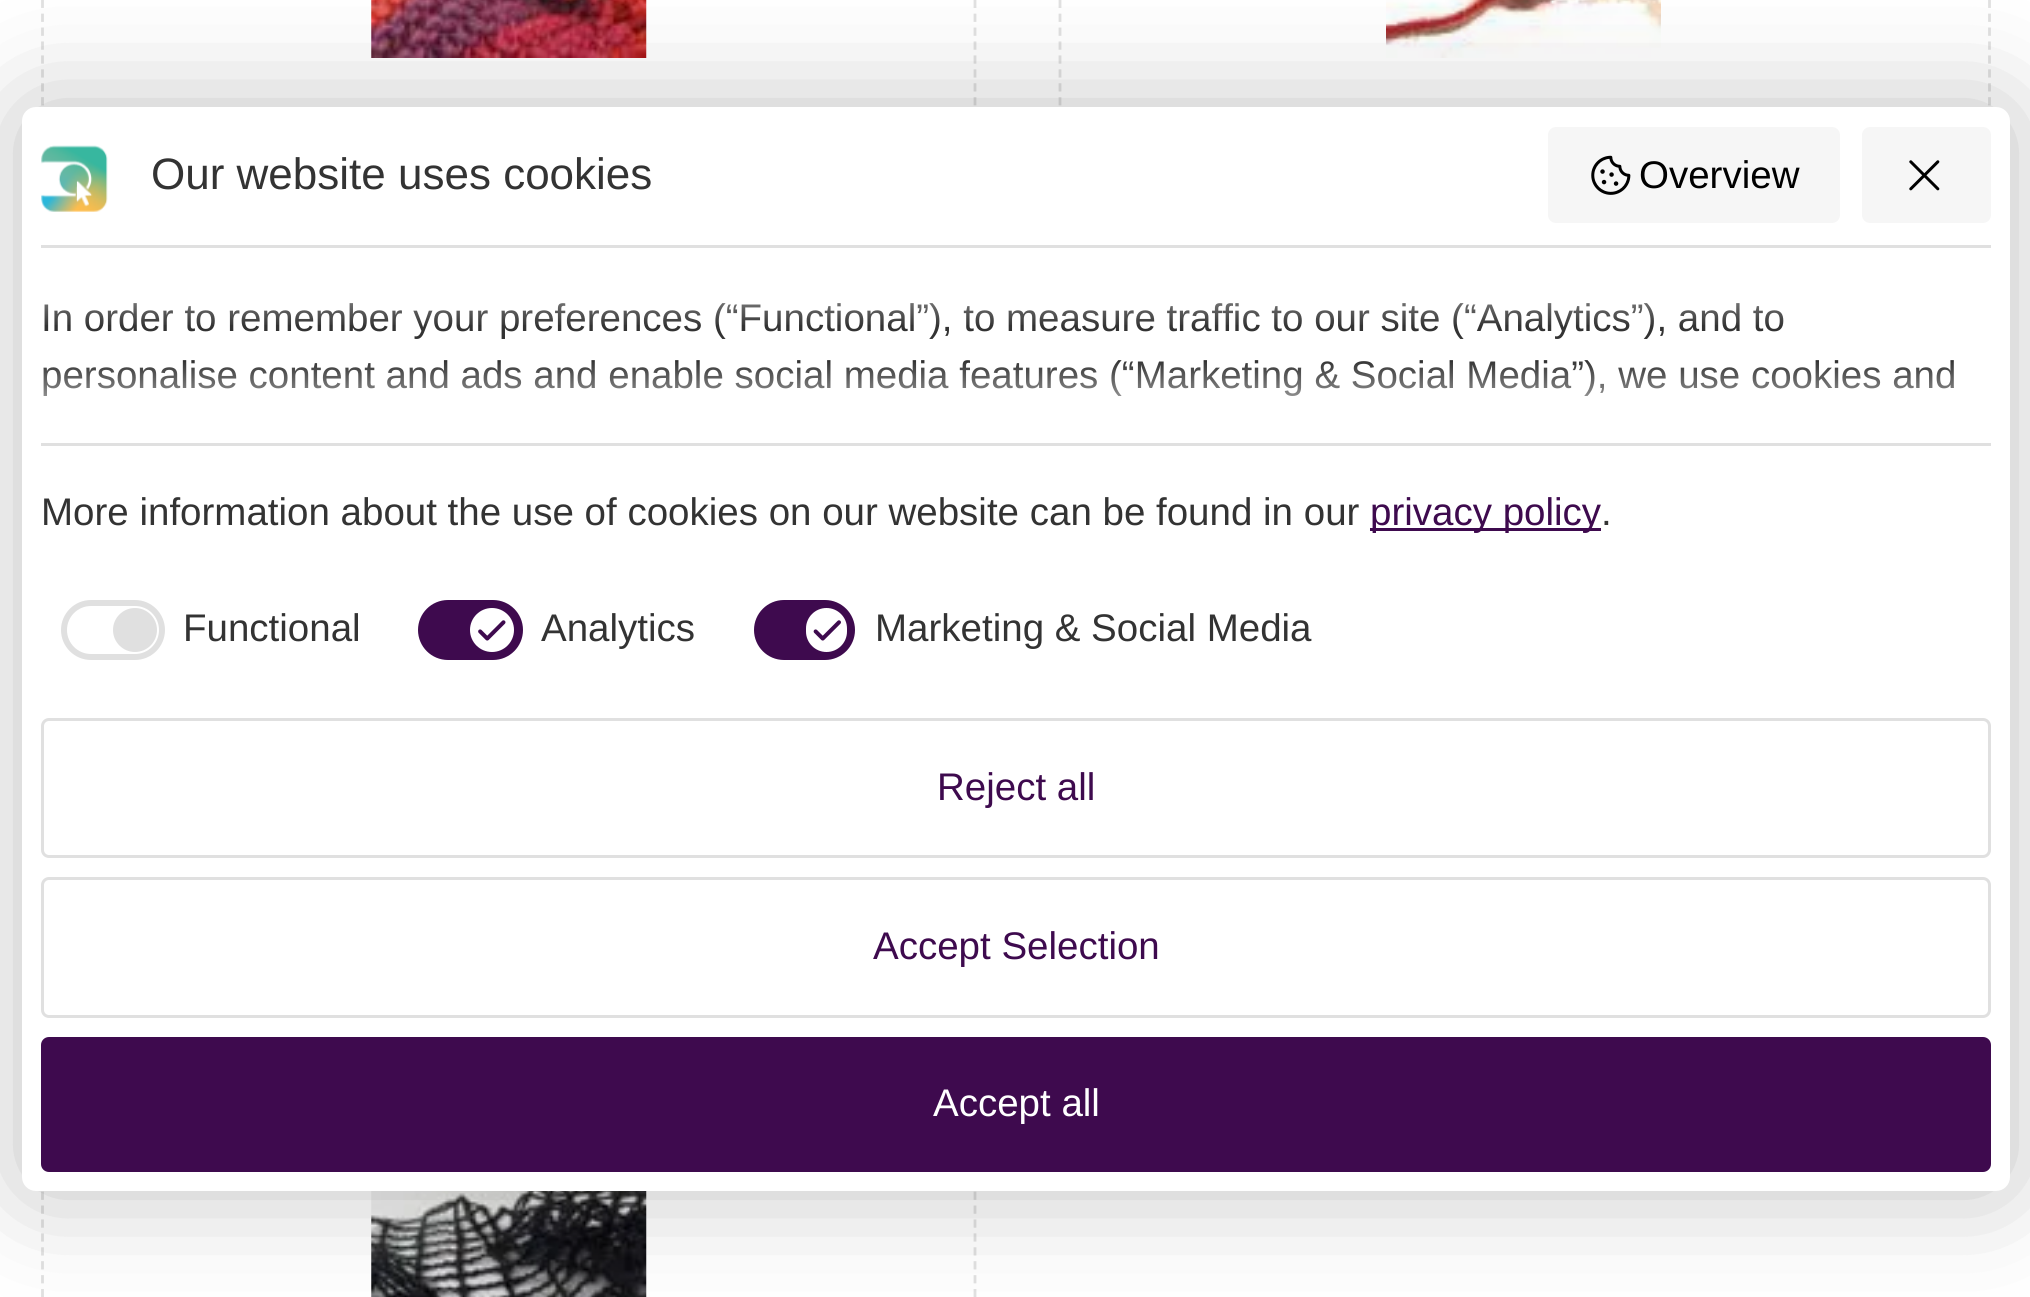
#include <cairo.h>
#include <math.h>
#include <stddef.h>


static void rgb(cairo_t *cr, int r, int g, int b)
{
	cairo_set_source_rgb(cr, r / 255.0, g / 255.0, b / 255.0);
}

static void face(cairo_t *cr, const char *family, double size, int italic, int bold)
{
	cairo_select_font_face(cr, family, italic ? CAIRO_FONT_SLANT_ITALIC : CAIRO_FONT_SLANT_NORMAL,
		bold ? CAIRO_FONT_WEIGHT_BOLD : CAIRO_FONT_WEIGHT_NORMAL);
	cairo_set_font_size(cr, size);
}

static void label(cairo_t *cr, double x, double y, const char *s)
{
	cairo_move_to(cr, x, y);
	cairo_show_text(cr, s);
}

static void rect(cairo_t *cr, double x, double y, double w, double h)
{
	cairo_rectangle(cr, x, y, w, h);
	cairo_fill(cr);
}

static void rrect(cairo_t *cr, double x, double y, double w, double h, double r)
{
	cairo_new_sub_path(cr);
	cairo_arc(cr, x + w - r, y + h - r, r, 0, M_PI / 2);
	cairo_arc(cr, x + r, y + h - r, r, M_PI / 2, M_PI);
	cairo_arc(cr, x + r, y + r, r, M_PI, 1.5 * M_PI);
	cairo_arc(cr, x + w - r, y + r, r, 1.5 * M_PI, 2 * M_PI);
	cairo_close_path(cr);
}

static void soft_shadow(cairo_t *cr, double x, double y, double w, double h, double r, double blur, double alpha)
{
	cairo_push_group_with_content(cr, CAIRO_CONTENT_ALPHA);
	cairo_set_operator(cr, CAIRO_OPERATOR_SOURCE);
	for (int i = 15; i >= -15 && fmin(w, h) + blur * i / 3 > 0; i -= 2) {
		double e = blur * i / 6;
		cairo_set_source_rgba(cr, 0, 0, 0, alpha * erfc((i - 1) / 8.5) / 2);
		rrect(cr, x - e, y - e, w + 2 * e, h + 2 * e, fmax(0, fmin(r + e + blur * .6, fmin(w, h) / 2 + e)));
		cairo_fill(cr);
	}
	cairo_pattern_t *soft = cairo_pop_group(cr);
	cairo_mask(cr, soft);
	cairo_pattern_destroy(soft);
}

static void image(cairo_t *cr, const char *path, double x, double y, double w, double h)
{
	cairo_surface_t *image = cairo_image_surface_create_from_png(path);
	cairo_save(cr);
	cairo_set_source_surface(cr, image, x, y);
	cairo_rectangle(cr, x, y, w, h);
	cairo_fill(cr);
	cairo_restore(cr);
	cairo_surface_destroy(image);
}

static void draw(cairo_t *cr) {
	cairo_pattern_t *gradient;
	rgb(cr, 255, 255, 255);
	cairo_paint(cr);
	cairo_new_path(cr);
	cairo_move_to(cr, 975, -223);
	cairo_line_to(cr, 975, 217);
	rgb(cr, 225, 225, 225);
	cairo_set_line_width(cr, 2.8);
	cairo_set_dash(cr, (double[]){8.25, 5.67}, 2, 0);
	cairo_stroke(cr);
	cairo_new_path(cr);
	cairo_move_to(cr, 42.5, -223);
	cairo_line_to(cr, 42.5, 217);
	cairo_stroke(cr);
	image(cr, "image0.png", 371, 0, 276, 58);
	cairo_new_path(cr);
	cairo_move_to(cr, 1989.5, -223);
	cairo_line_to(cr, 1989.5, 217);
	cairo_stroke(cr);
	cairo_new_path(cr);
	cairo_move_to(cr, 1060, -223);
	cairo_line_to(cr, 1060, 217);
	cairo_stroke(cr);
	image(cr, "image1.png", 1386, 0, 275, 58);
	cairo_new_path(cr);
	cairo_move_to(cr, 975, 1122);
	cairo_line_to(cr, 975, 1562);
	cairo_stroke(cr);
	cairo_new_path(cr);
	cairo_move_to(cr, 42.5, 1122);
	cairo_line_to(cr, 42.5, 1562);
	cairo_stroke(cr);
	image(cr, "image2.png", 371, 1191, 276, 106);
	rgb(cr, 0, 0, 0);
	soft_shadow(cr, 22, 107, 1988, 1084, 14, 55, 0.25);
	rgb(cr, 255, 255, 255);
	rrect(cr, 22, 107, 1988, 1084, 14);
	cairo_fill(cr);
	image(cr, "image3.png", 41, 145, 67, 67);
	face(cr, "Liberation Sans", 44, 0, 0);
	rgb(cr, 51, 51, 51);
	label(cr, 151, 189, "Our website uses cookies");
	rgb(cr, 246, 246, 246);
	rrect(cr, 1548, 127, 292, 96, 8);
	cairo_fill(cr);
	image(cr, "image4.png", 1591, 155, 40, 40);
	face(cr, "Liberation Sans", 38.5, 0, 0);
	rgb(cr, 0, 0, 0);
	label(cr, 1639, 188, "Overview");
	rgb(cr, 246, 246, 246);
	rrect(cr, 1862, 127, 129, 96, 8);
	cairo_fill(cr);
	image(cr, "image5.png", 1909, 160, 31, 31);
	rgb(cr, 224, 224, 224);
	rect(cr, 41, 245, 1950, 3);
	rect(cr, 41, 443, 1950, 3);
	rgb(cr, 51, 51, 51);
	label(cr, 41, 331, "In order to remember your preferences (“Functional”), to measure traffic to our site (“Analytics”), and to");
	label(cr, 41, 388, "personalise content and ads and enable social media features (“Marketing & Social Media”), we use cookies and");
	gradient = cairo_pattern_create_linear(1016, 327, 1016, 245);
	cairo_pattern_add_color_stop_rgba(gradient, 0, 1, 1, 1, 0);
	cairo_pattern_add_color_stop_rgba(gradient, 1, 1, 1, 1, 1);
	cairo_set_source(cr, gradient);
	cairo_pattern_destroy(gradient);
	rect(cr, 44, 303, 1740, 22);
	gradient = cairo_pattern_create_linear(1016, 360, 1016, 443);
	cairo_pattern_add_color_stop_rgba(gradient, 0, 1, 1, 1, 0);
	cairo_pattern_add_color_stop_rgba(gradient, 1, 1, 1, 1, 1);
	cairo_set_source(cr, gradient);
	cairo_pattern_destroy(gradient);
	rect(cr, 43, 362, 1912, 34);
	rgb(cr, 51, 51, 51);
	label(cr, 41, 525, "More information about the use of cookies on our website can be found in our");
	rgb(cr, 62, 10, 78);
	rect(cr, 1370, 528, 231, 3);
	label(cr, 1370, 525, "privacy policy");
	rgb(cr, 51, 51, 51);
	label(cr, 1601, 525, ".");
	rrect(cr, 64, 603, 98, 54, 27);
	rgb(cr, 224, 224, 224);
	cairo_set_line_width(cr, 6);
	cairo_set_dash(cr, NULL, 0, 0);
	cairo_stroke(cr);
	cairo_arc(cr, 135, 630, 22, 0, 2 * M_PI);
	cairo_fill(cr);
	rgb(cr, 51, 51, 51);
	label(cr, 183, 641, "Functional");
	rgb(cr, 62, 10, 78);
	rrect(cr, 421, 603, 99, 54, 27);
	cairo_fill_preserve(cr);
	cairo_stroke(cr);
	rgb(cr, 255, 255, 255);
	cairo_arc(cr, 492, 630, 22, 0, 2 * M_PI);
	cairo_fill(cr);
	image(cr, "image6.png", 478, 620, 28, 21);
	rgb(cr, 51, 51, 51);
	label(cr, 541, 641, "Analytics");
	rgb(cr, 62, 10, 78);
	rrect(cr, 757, 603, 95, 54, 27);
	cairo_fill_preserve(cr);
	cairo_stroke(cr);
	rgb(cr, 255, 255, 255);
	rrect(cr, 806, 608, 41, 44, 20.5);
	cairo_fill(cr);
	image(cr, "image7.png", 813, 620, 28, 21);
	rgb(cr, 51, 51, 51);
	label(cr, 875, 641, "Marketing & Social Media");
	rrect(cr, 42.5, 719.5, 1947, 137, 6.5);
	rgb(cr, 224, 224, 224);
	cairo_set_line_width(cr, 3);
	cairo_stroke(cr);
	rgb(cr, 62, 10, 78);
	label(cr, 937, 800, "Reject all");
	rrect(cr, 42.5, 878.5, 1947, 138, 6.5);
	rgb(cr, 224, 224, 224);
	cairo_stroke(cr);
	rgb(cr, 62, 10, 78);
	label(cr, 873, 959, "Accept Selection");
	rrect(cr, 41, 1037, 1950, 135, 8);
	cairo_fill(cr);
	rgb(cr, 255, 255, 255);
	label(cr, 933, 1116, "Accept all");
}

int main(void) {
	cairo_surface_t *surface = cairo_image_surface_create(CAIRO_FORMAT_RGB24, 2030, 1297);
	cairo_t *cr = cairo_create(surface);
	cairo_font_options_t *options = cairo_font_options_create();
	cairo_font_options_set_hint_metrics(options, CAIRO_HINT_METRICS_OFF);
	cairo_font_options_set_hint_style(options, CAIRO_HINT_STYLE_NONE);
	cairo_set_font_options(cr, options);
	cairo_set_miter_limit(cr, 4);
	draw(cr);
	cairo_surface_write_to_png(surface, "render.png");
	cairo_font_options_destroy(options);
	cairo_destroy(cr);
	cairo_surface_destroy(surface);
	return 0;
}
